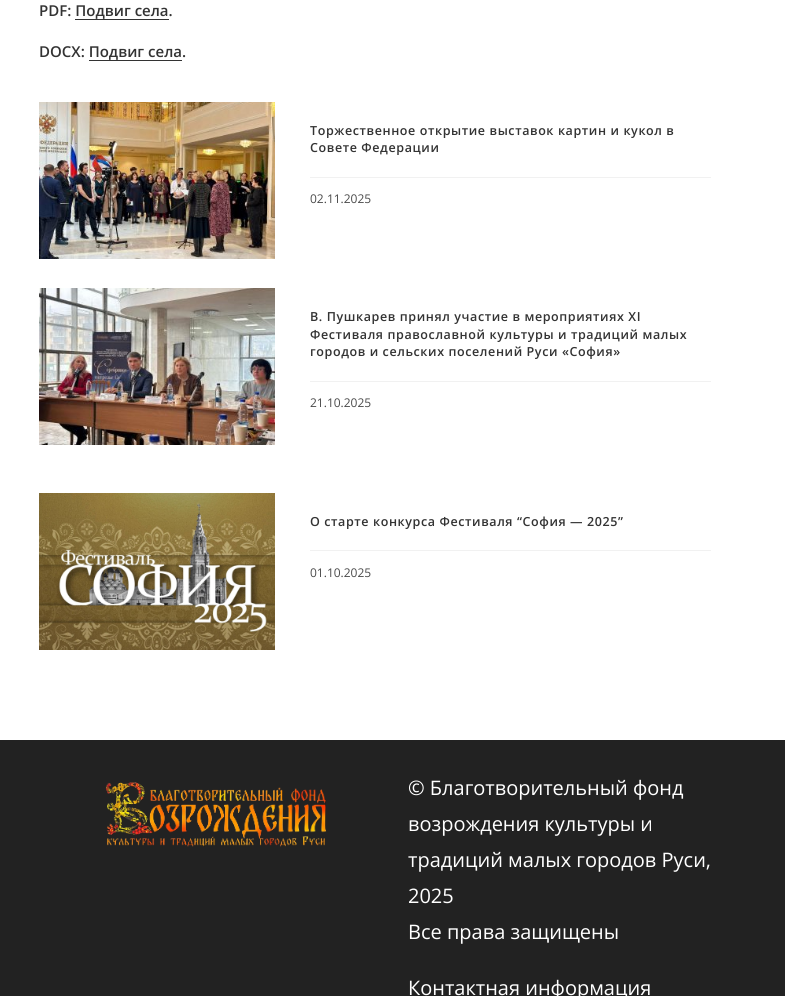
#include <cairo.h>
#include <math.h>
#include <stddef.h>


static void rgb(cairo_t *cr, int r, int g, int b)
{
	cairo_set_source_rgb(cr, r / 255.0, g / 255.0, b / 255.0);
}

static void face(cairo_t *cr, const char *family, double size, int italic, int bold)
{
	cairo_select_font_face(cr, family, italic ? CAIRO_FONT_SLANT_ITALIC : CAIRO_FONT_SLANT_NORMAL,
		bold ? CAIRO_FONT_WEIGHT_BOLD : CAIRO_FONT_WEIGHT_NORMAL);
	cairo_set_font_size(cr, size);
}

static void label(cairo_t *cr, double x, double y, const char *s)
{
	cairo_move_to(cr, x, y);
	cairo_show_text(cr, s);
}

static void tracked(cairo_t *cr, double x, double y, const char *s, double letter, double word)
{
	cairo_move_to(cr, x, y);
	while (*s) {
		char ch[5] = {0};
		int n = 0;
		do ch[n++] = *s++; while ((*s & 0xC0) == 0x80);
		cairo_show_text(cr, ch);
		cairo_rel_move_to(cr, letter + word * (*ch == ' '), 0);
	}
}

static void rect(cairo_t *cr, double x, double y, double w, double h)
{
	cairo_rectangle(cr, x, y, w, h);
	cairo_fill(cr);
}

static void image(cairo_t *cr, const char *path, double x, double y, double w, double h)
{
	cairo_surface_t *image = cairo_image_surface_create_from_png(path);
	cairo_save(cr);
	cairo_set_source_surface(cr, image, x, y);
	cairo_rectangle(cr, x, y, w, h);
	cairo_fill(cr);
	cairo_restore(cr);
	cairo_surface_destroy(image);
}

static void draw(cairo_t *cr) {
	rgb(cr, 255, 255, 255);
	cairo_paint(cr);
	face(cr, "Open Sans SemiBold", 15, 0, 0);
	rgb(cr, 51, 51, 51);
	label(cr, 39, 16, "PDF: Подвиг села.");
	rect(cr, 75, 19, 94, 1);
	label(cr, 39, 57, "DOCX: Подвиг села.");
	rect(cr, 89, 60, 93, 1);
	image(cr, "image0.png", 39, 102, 236, 157);
	rgb(cr, 241, 241, 241);
	rect(cr, 310, 177, 401, 1);
	face(cr, "Open Sans SemiBold", 12.5, 0, 0);
	rgb(cr, 51, 51, 51);
	tracked(cr, 310, 135, "Торжественное открытие выставок картин и кукол в", 0.6, 0);
	tracked(cr, 310, 152, "Совете Федерации", 0.6, 0);
	face(cr, "Open Sans", 12, 0, 0);
	rgb(cr, 74, 74, 74);
	label(cr, 310, 203, "02.11.2025");
	image(cr, "image1.png", 39, 288, 236, 157);
	rgb(cr, 241, 241, 241);
	rect(cr, 310, 381, 401, 1);
	face(cr, "Open Sans SemiBold", 12.5, 0, 0);
	rgb(cr, 51, 51, 51);
	tracked(cr, 310, 321, "В. Пушкарев принял участие в мероприятиях ХI", 0.6, 0);
	tracked(cr, 310, 339, "Фестиваля православной культуры и традиций малых", 0.6, 0);
	tracked(cr, 310, 356, "городов и сельских поселений Руси «София»", 0.6, 0);
	face(cr, "Open Sans", 12, 0, 0);
	rgb(cr, 74, 74, 74);
	label(cr, 310, 407, "21.10.2025");
	image(cr, "image2.png", 39, 493, 236, 157);
	rgb(cr, 241, 241, 241);
	rect(cr, 310, 550, 401, 1);
	face(cr, "Open Sans SemiBold", 12.5, 0, 0);
	rgb(cr, 51, 51, 51);
	tracked(cr, 310, 526, "О старте конкурса Фестиваля “София — 2025”", 0.6, 0);
	face(cr, "Open Sans", 12, 0, 0);
	rgb(cr, 74, 74, 74);
	label(cr, 310, 577, "01.10.2025");
	rgb(cr, 34, 34, 34);
	rect(cr, 0, 740, 785, 256);
	image(cr, "image3.png", 105, 782, 222, 65);
	face(cr, "Open Sans", 20, 0, 0);
	rgb(cr, 255, 255, 255);
	label(cr, 408, 795, "© Благотворительный фонд");
	label(cr, 408, 831, "возрождения культуры и");
	label(cr, 408, 867, "традиций малых городов Руси,");
	label(cr, 408, 903, "2025");
	label(cr, 408, 939, "Все права защищены");
	label(cr, 408, 995, "Контактная информация");
}

int main(void) {
	cairo_surface_t *surface = cairo_image_surface_create(CAIRO_FORMAT_RGB24, 785, 996);
	cairo_t *cr = cairo_create(surface);
	cairo_font_options_t *options = cairo_font_options_create();
	cairo_font_options_set_hint_metrics(options, CAIRO_HINT_METRICS_OFF);
	cairo_font_options_set_hint_style(options, CAIRO_HINT_STYLE_NONE);
	cairo_set_font_options(cr, options);
	cairo_set_miter_limit(cr, 4);
	draw(cr);
	cairo_surface_write_to_png(surface, "render.png");
	cairo_font_options_destroy(options);
	cairo_destroy(cr);
	cairo_surface_destroy(surface);
	return 0;
}
